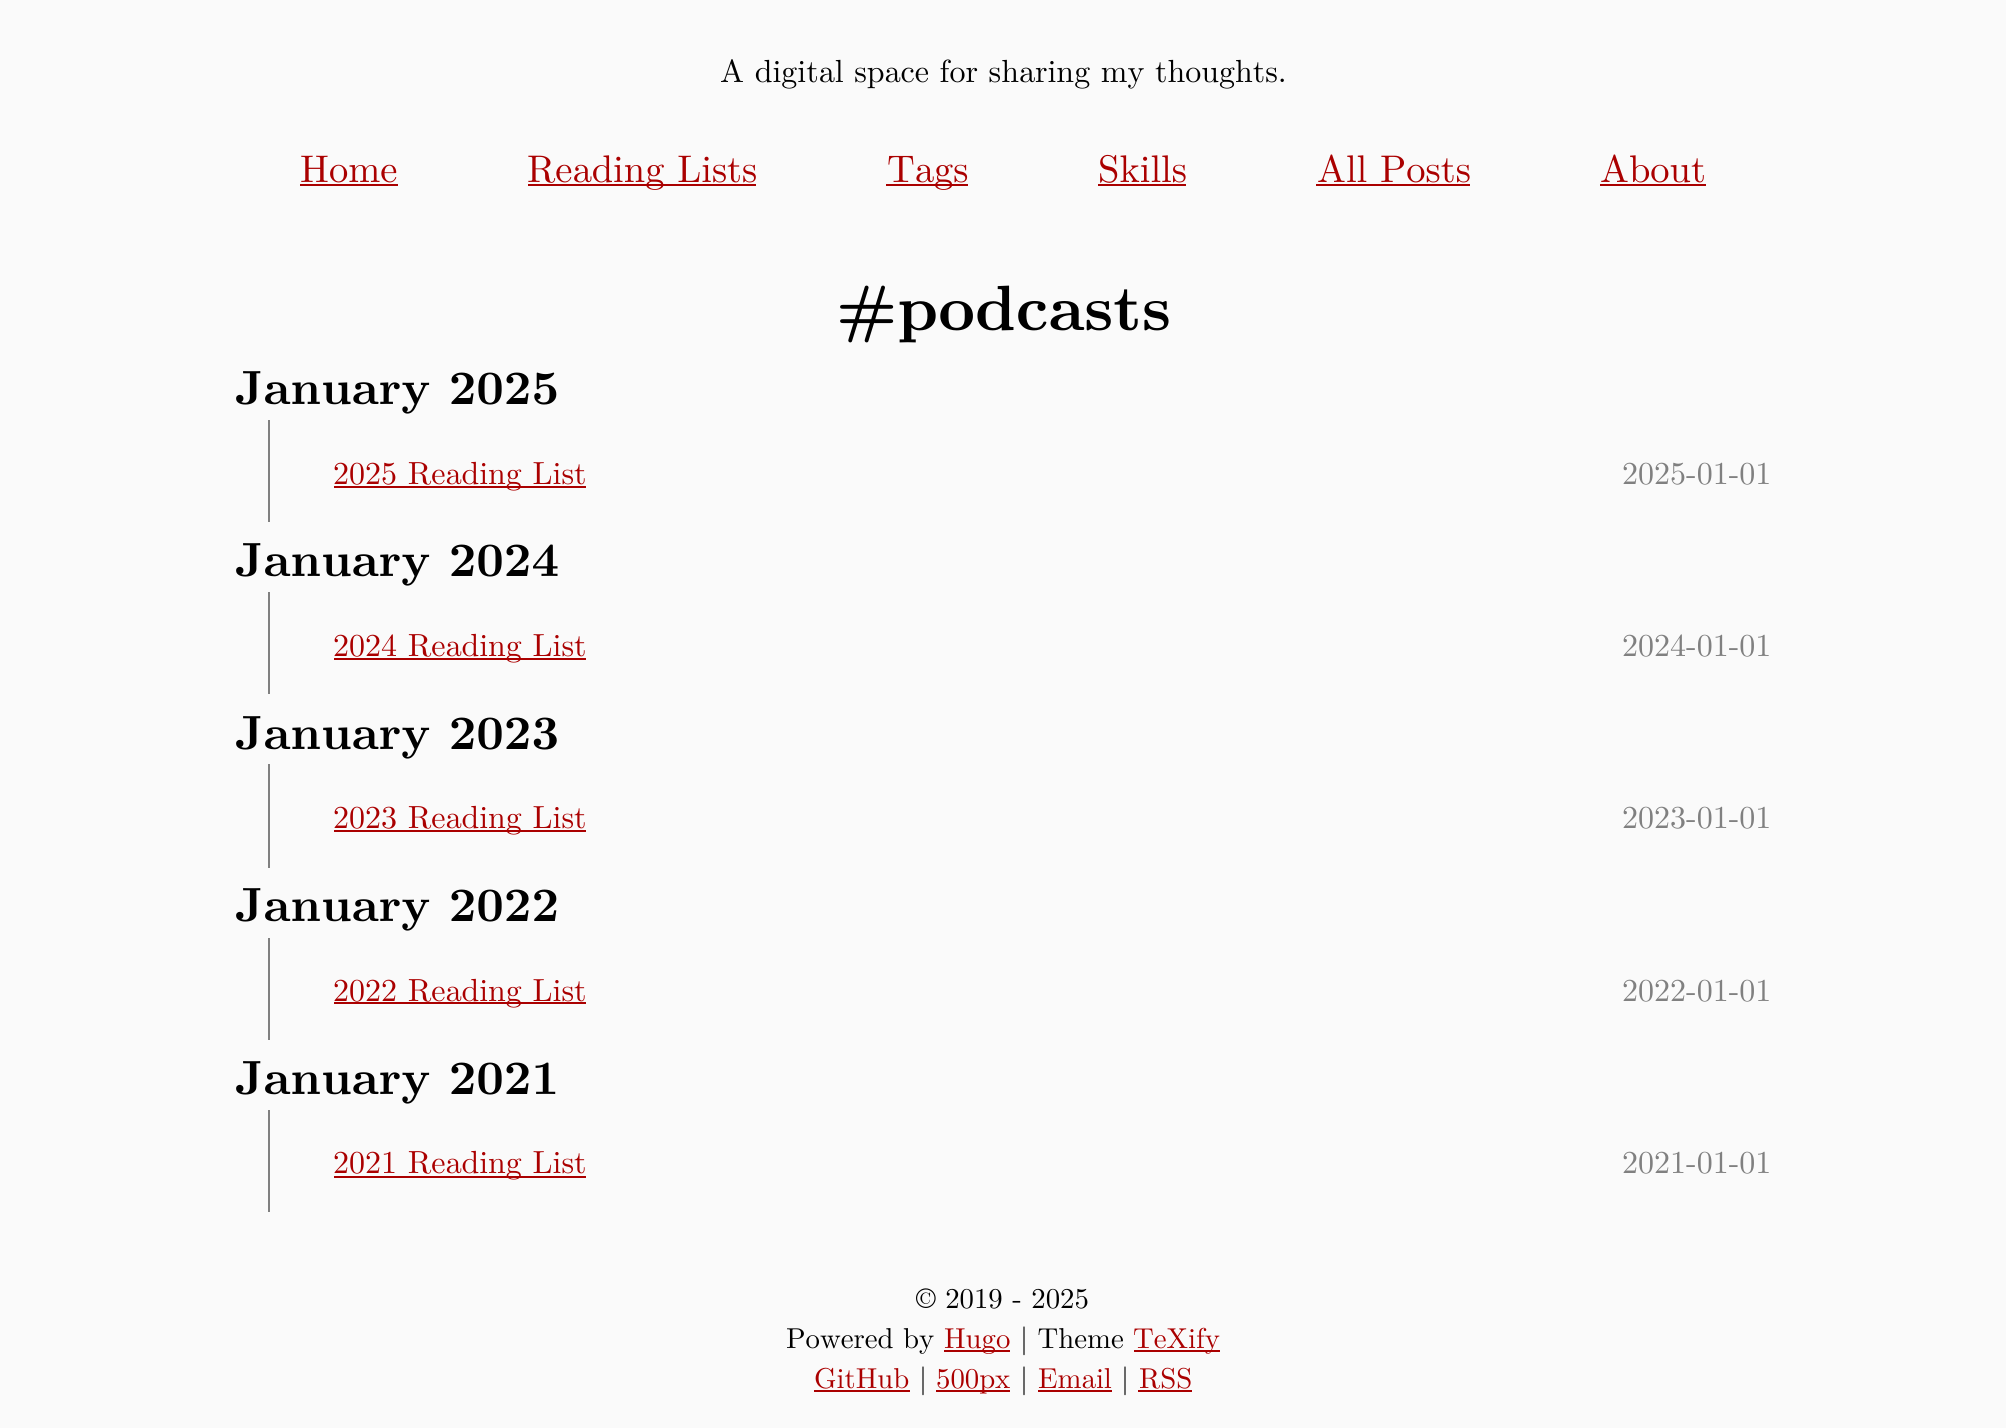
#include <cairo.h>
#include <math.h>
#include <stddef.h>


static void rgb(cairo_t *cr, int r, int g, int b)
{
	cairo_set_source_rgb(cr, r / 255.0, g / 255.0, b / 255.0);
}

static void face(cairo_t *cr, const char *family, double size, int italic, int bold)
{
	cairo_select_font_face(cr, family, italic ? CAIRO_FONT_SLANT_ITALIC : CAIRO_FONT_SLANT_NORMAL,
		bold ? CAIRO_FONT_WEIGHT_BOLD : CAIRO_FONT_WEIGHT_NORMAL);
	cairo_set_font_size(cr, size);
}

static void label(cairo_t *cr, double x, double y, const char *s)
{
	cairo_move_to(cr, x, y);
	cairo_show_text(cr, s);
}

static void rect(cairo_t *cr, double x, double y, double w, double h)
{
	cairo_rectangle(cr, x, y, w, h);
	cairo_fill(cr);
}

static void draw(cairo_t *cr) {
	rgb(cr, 250, 250, 250);
	cairo_paint(cr);
	face(cr, "Latin Modern Roman", 32, 0, 0);
	rgb(cr, 0, 0, 0);
	label(cr, 720, 82, "A digital space for sharing my thoughts.");
	face(cr, "Latin Modern Roman", 38.5, 0, 0);
	rgb(cr, 170, 0, 0);
	label(cr, 300, 182, "Home");
	rect(cr, 300, 184, 98, 2);
	rect(cr, 528, 184, 228, 2);
	label(cr, 527, 182, "Reading Lists");
	rect(cr, 886, 184, 82, 2);
	label(cr, 887, 182, "Tags");
	label(cr, 1098, 182, "Skills");
	rect(cr, 1098, 184, 88, 2);
	label(cr, 1317, 182, "All Posts");
	rect(cr, 1316, 184, 154, 2);
	label(cr, 1600, 182, "About");
	rect(cr, 1600, 184, 106, 2);
	face(cr, "Latin Modern Roman", 64, 0, 1);
	rgb(cr, 0, 0, 0);
	label(cr, 836, 330, "#podcasts");
	face(cr, "Latin Modern Roman", 48, 0, 1);
	label(cr, 235, 404, "January 2025");
	rgb(cr, 128, 128, 128);
	rect(cr, 268, 420, 2, 102);
	rgb(cr, 170, 0, 0);
	rect(cr, 334, 486, 252, 2);
	face(cr, "Latin Modern Roman", 32, 0, 0);
	label(cr, 333, 484, "2025 Reading List");
	rgb(cr, 128, 128, 128);
	label(cr, 1622, 484, "2025-01-01");
	face(cr, "Latin Modern Roman", 48, 0, 1);
	rgb(cr, 0, 0, 0);
	label(cr, 235, 576, "January 2024");
	rgb(cr, 128, 128, 128);
	rect(cr, 268, 592, 2, 102);
	rgb(cr, 170, 0, 0);
	rect(cr, 334, 658, 252, 2);
	face(cr, "Latin Modern Roman", 32, 0, 0);
	label(cr, 333, 656, "2024 Reading List");
	rgb(cr, 128, 128, 128);
	label(cr, 1622, 656, "2024-01-01");
	face(cr, "Latin Modern Roman", 48, 0, 1);
	rgb(cr, 0, 0, 0);
	label(cr, 235, 749, "January 2023");
	rgb(cr, 128, 128, 128);
	rect(cr, 268, 764, 2, 104);
	rgb(cr, 170, 0, 0);
	rect(cr, 334, 830, 252, 2);
	face(cr, "Latin Modern Roman", 32, 0, 0);
	label(cr, 333, 828, "2023 Reading List");
	rgb(cr, 128, 128, 128);
	label(cr, 1622, 828, "2023-01-01");
	face(cr, "Latin Modern Roman", 48, 0, 1);
	rgb(cr, 0, 0, 0);
	label(cr, 235, 921, "January 2022");
	rgb(cr, 128, 128, 128);
	rect(cr, 268, 938, 2, 102);
	rgb(cr, 170, 0, 0);
	rect(cr, 334, 1002, 252, 2);
	face(cr, "Latin Modern Roman", 32, 0, 0);
	label(cr, 333, 1001, "2022 Reading List");
	rgb(cr, 128, 128, 128);
	label(cr, 1622, 1001, "2022-01-01");
	face(cr, "Latin Modern Roman", 48, 0, 1);
	rgb(cr, 0, 0, 0);
	label(cr, 235, 1094, "January 2021");
	rgb(cr, 128, 128, 128);
	rect(cr, 268, 1110, 2, 102);
	rgb(cr, 170, 0, 0);
	rect(cr, 334, 1176, 252, 2);
	face(cr, "Latin Modern Roman", 32, 0, 0);
	label(cr, 333, 1173, "2021 Reading List");
	rgb(cr, 128, 128, 128);
	label(cr, 1622, 1173, "2021-01-01");
	face(cr, "Latin Modern Roman", 28.75, 0, 0);
	rgb(cr, 0, 0, 0);
	label(cr, 916, 1308, "© 2019 - 2025");
	label(cr, 786, 1348, "Powered by");
	rgb(cr, 170, 0, 0);
	rect(cr, 944, 1350, 66, 2);
	label(cr, 944, 1348, "Hugo");
	rgb(cr, 0, 0, 0);
	label(cr, 1020, 1348, "| Theme");
	rgb(cr, 170, 0, 0);
	rect(cr, 1134, 1350, 86, 2);
	label(cr, 1133, 1348, "TeXify");
	label(cr, 814, 1388, "GitHub");
	rect(cr, 814, 1390, 96, 2);
	rgb(cr, 0, 0, 0);
	label(cr, 919, 1388, "|");
	rgb(cr, 170, 0, 0);
	rect(cr, 936, 1390, 74, 2);
	label(cr, 936, 1388, "500px");
	rgb(cr, 0, 0, 0);
	label(cr, 1020, 1388, "|");
	rgb(cr, 170, 0, 0);
	label(cr, 1038, 1388, "Email");
	rect(cr, 1038, 1390, 74, 2);
	rgb(cr, 0, 0, 0);
	label(cr, 1121, 1388, "|");
	rgb(cr, 170, 0, 0);
	label(cr, 1139, 1388, "RSS");
	rect(cr, 1138, 1390, 54, 2);
}

int main(void) {
	cairo_surface_t *surface = cairo_image_surface_create(CAIRO_FORMAT_RGB24, 2006, 1428);
	cairo_t *cr = cairo_create(surface);
	cairo_font_options_t *options = cairo_font_options_create();
	cairo_font_options_set_hint_metrics(options, CAIRO_HINT_METRICS_OFF);
	cairo_font_options_set_hint_style(options, CAIRO_HINT_STYLE_NONE);
	cairo_set_font_options(cr, options);
	cairo_set_miter_limit(cr, 4);
	draw(cr);
	cairo_surface_write_to_png(surface, "render.png");
	cairo_font_options_destroy(options);
	cairo_destroy(cr);
	cairo_surface_destroy(surface);
	return 0;
}
